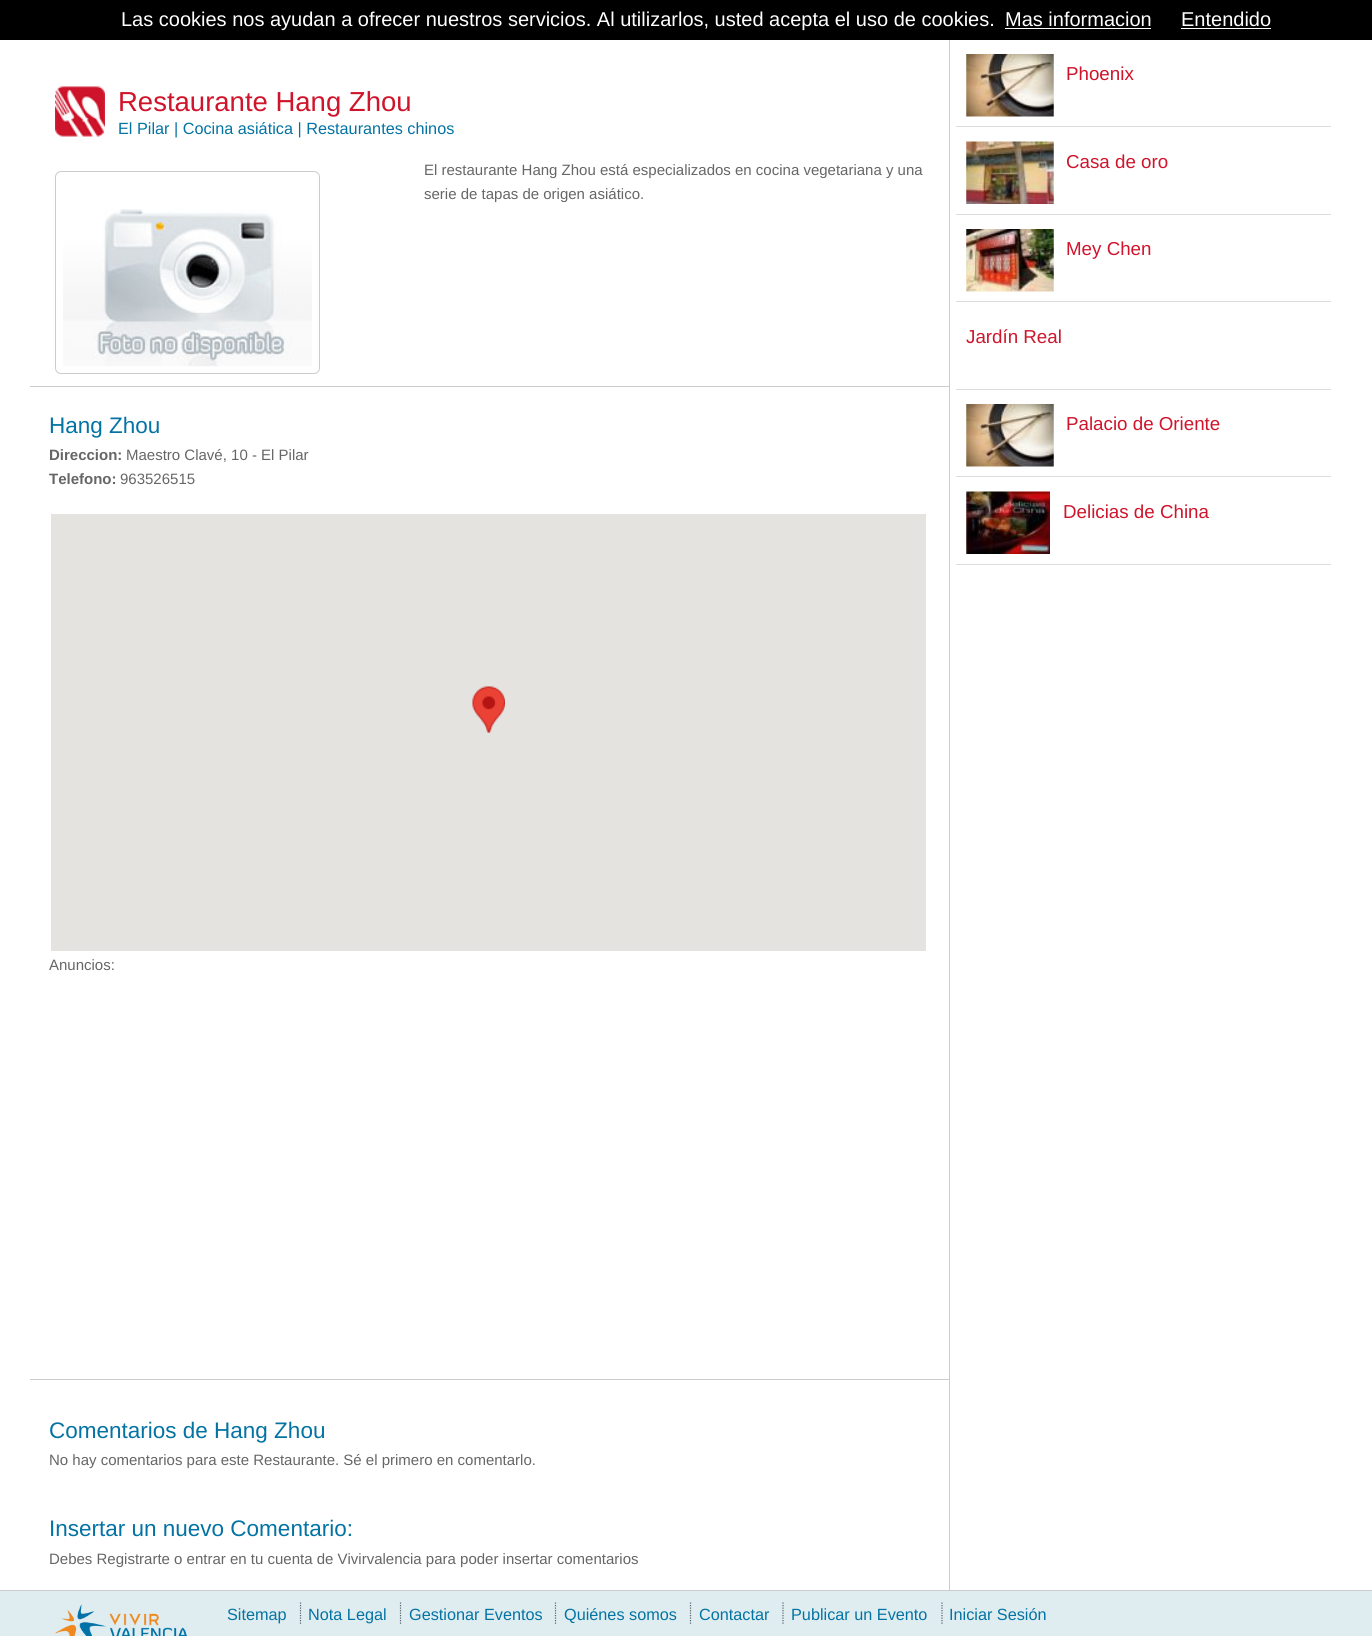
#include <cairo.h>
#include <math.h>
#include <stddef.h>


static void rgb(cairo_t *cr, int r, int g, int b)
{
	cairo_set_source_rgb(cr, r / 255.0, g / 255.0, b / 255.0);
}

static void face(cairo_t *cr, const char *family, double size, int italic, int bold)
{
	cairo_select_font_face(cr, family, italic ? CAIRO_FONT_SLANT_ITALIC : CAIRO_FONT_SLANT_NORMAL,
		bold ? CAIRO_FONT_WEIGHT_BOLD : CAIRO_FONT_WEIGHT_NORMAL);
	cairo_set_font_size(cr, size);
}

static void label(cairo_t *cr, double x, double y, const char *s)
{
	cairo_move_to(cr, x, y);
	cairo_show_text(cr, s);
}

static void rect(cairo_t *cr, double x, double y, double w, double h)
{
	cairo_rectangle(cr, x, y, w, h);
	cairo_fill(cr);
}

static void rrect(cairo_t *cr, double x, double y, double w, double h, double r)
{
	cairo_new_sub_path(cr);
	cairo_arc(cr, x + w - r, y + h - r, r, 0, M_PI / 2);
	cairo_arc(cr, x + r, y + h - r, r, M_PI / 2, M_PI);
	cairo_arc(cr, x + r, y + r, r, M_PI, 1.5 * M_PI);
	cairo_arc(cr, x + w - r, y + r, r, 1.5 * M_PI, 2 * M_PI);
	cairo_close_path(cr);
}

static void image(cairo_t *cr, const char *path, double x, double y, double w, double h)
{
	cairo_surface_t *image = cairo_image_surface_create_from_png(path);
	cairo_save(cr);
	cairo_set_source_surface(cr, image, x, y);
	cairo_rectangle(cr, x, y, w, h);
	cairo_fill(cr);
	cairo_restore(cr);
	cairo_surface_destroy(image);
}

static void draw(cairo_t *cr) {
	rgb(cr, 255, 255, 255);
	cairo_paint(cr);
	rgb(cr, 0, 0, 0);
	rect(cr, 0, 0, 1372, 40);
	face(cr, "Liberation Sans", 20, 0, 0);
	rgb(cr, 255, 255, 255);
	label(cr, 121, 26, "Las cookies nos ayudan a ofrecer nuestros servicios. Al utilizarlos, usted acepta el uso de cookies.");
	label(cr, 1005, 26, "Mas informacion");
	rect(cr, 1005, 28, 146, 1);
	label(cr, 1181, 26, "Entendido");
	rect(cr, 1181, 28, 90, 1);
	rgb(cr, 204, 204, 204);
	rect(cr, 949, 40, 1, 1550);
	image(cr, "image0.png", 55, 86, 50, 51);
	face(cr, "Liberation Sans", 27.5, 0, 0);
	rgb(cr, 207, 20, 43);
	label(cr, 118, 111, "Restaurante Hang Zhou");
	face(cr, "Liberation Sans", 16.25, 0, 0);
	rgb(cr, 3, 115, 163);
	label(cr, 118, 134, "El Pilar | Cocina asiática | Restaurantes chinos");
	rrect(cr, 55.5, 171.5, 264, 202, 5.5);
	rgb(cr, 204, 204, 204);
	cairo_set_line_width(cr, 1);
	cairo_stroke(cr);
	image(cr, "image1.png", 63, 209, 249, 158);
	face(cr, "Liberation Sans", 15, 0, 0);
	rgb(cr, 102, 102, 102);
	label(cr, 424, 175, "El restaurante Hang Zhou está especializados en cocina vegetariana y una");
	label(cr, 424, 199, "serie de tapas de origen asiático.");
	rgb(cr, 204, 204, 204);
	rect(cr, 30, 386, 919, 1);
	face(cr, "Liberation Sans", 22.5, 0, 0);
	rgb(cr, 3, 115, 163);
	label(cr, 49, 433, "Hang Zhou");
	face(cr, "Liberation Sans", 15, 0, 1);
	rgb(cr, 102, 102, 102);
	label(cr, 49, 460, "Direccion:");
	face(cr, "Liberation Sans", 15, 0, 0);
	label(cr, 126, 460, "Maestro Clavé, 10 - El Pilar");
	face(cr, "Liberation Sans", 15, 0, 1);
	label(cr, 49, 484, "Telefono:");
	face(cr, "Liberation Sans", 15, 0, 0);
	label(cr, 120, 484, "963526515");
	rgb(cr, 229, 227, 223);
	rect(cr, 51, 514, 875, 437);
	image(cr, "image2.png", 472, 686, 33, 47);
	rgb(cr, 102, 102, 102);
	label(cr, 49, 970, "Anuncios:");
	rgb(cr, 204, 204, 204);
	rect(cr, 30, 1379, 919, 1);
	face(cr, "Liberation Sans", 22.5, 0, 0);
	rgb(cr, 3, 115, 163);
	label(cr, 49, 1438, "Comentarios de Hang Zhou");
	face(cr, "Liberation Sans", 15, 0, 0);
	rgb(cr, 102, 102, 102);
	label(cr, 49, 1465, "No hay comentarios para este Restaurante. Sé el primero en comentarlo.");
	face(cr, "Liberation Sans", 22.5, 0, 0);
	rgb(cr, 3, 115, 163);
	label(cr, 49, 1536, "Insertar un nuevo Comentario:");
	face(cr, "Liberation Sans", 15, 0, 0);
	rgb(cr, 102, 102, 102);
	label(cr, 49, 1564, "Debes Registrarte o entrar en tu cuenta de Vivirvalencia para poder insertar comentarios");
	rgb(cr, 221, 221, 221);
	rect(cr, 956, 126, 375, 1);
	image(cr, "image3.png", 966, 54, 88, 63);
	face(cr, "Liberation Sans", 18.75, 0, 0);
	rgb(cr, 207, 20, 43);
	label(cr, 1066, 80, "Phoenix");
	rgb(cr, 221, 221, 221);
	rect(cr, 956, 214, 375, 1);
	image(cr, "image4.png", 966, 141, 88, 63);
	rgb(cr, 207, 20, 43);
	label(cr, 1066, 168, "Casa de oro");
	rgb(cr, 221, 221, 221);
	rect(cr, 956, 301, 375, 1);
	image(cr, "image5.png", 966, 229, 88, 63);
	rgb(cr, 207, 20, 43);
	label(cr, 1066, 255, "Mey Chen");
	rgb(cr, 221, 221, 221);
	rect(cr, 956, 389, 375, 1);
	rgb(cr, 207, 20, 43);
	label(cr, 966, 343, "Jardín Real");
	rgb(cr, 221, 221, 221);
	rect(cr, 956, 476, 375, 1);
	image(cr, "image6.png", 966, 404, 88, 63);
	rgb(cr, 207, 20, 43);
	label(cr, 1066, 430, "Palacio de Oriente");
	rgb(cr, 221, 221, 221);
	rect(cr, 956, 564, 375, 1);
	image(cr, "image7.png", 966, 491, 84, 63);
	rgb(cr, 207, 20, 43);
	label(cr, 1063, 518, "Delicias de China");
	rgb(cr, 223, 237, 240);
	rect(cr, 0, 1591, 1372, 45);
	rgb(cr, 204, 204, 204);
	rect(cr, 0, 1590, 1372, 1);
	image(cr, "image8.png", 52, 1604, 136, 32);
	face(cr, "Liberation Sans", 16.25, 0, 0);
	rgb(cr, 3, 115, 163);
	label(cr, 227, 1620, "Sitemap");
	label(cr, 308, 1620, "Nota Legal");
	cairo_new_path(cr);
	cairo_move_to(cr, 300.5, 1602.5);
	cairo_line_to(cr, 300.5, 1624);
	rgb(cr, 89, 99, 112);
	cairo_set_line_width(cr, 1.2);
	cairo_set_dash(cr, (double[]){1.25, 1.25}, 2, 0);
	cairo_stroke(cr);
	rgb(cr, 3, 115, 163);
	label(cr, 409, 1620, "Gestionar Eventos");
	cairo_new_path(cr);
	cairo_move_to(cr, 400.5, 1602.5);
	cairo_line_to(cr, 400.5, 1624);
	rgb(cr, 89, 99, 112);
	cairo_stroke(cr);
	rgb(cr, 3, 115, 163);
	label(cr, 564, 1620, "Quiénes somos");
	cairo_new_path(cr);
	cairo_move_to(cr, 555.5, 1602.5);
	cairo_line_to(cr, 555.5, 1624);
	rgb(cr, 89, 99, 112);
	cairo_stroke(cr);
	rgb(cr, 3, 115, 163);
	label(cr, 699, 1620, "Contactar");
	cairo_new_path(cr);
	cairo_move_to(cr, 690.5, 1602.5);
	cairo_line_to(cr, 690.5, 1624);
	rgb(cr, 89, 99, 112);
	cairo_stroke(cr);
	rgb(cr, 3, 115, 163);
	label(cr, 791, 1620, "Publicar un Evento");
	cairo_new_path(cr);
	cairo_move_to(cr, 783, 1602.5);
	cairo_line_to(cr, 783, 1624);
	rgb(cr, 89, 99, 112);
	cairo_stroke(cr);
	rgb(cr, 3, 115, 163);
	label(cr, 949, 1620, "Iniciar Sesión");
	cairo_new_path(cr);
	cairo_move_to(cr, 942, 1602.5);
	cairo_line_to(cr, 942, 1624);
	rgb(cr, 89, 99, 112);
	cairo_stroke(cr);
}

int main(void) {
	cairo_surface_t *surface = cairo_image_surface_create(CAIRO_FORMAT_RGB24, 1372, 1636);
	cairo_t *cr = cairo_create(surface);
	cairo_font_options_t *options = cairo_font_options_create();
	cairo_font_options_set_hint_metrics(options, CAIRO_HINT_METRICS_OFF);
	cairo_font_options_set_hint_style(options, CAIRO_HINT_STYLE_NONE);
	cairo_set_font_options(cr, options);
	cairo_set_miter_limit(cr, 4);
	draw(cr);
	cairo_surface_write_to_png(surface, "render.png");
	cairo_font_options_destroy(options);
	cairo_destroy(cr);
	cairo_surface_destroy(surface);
	return 0;
}
